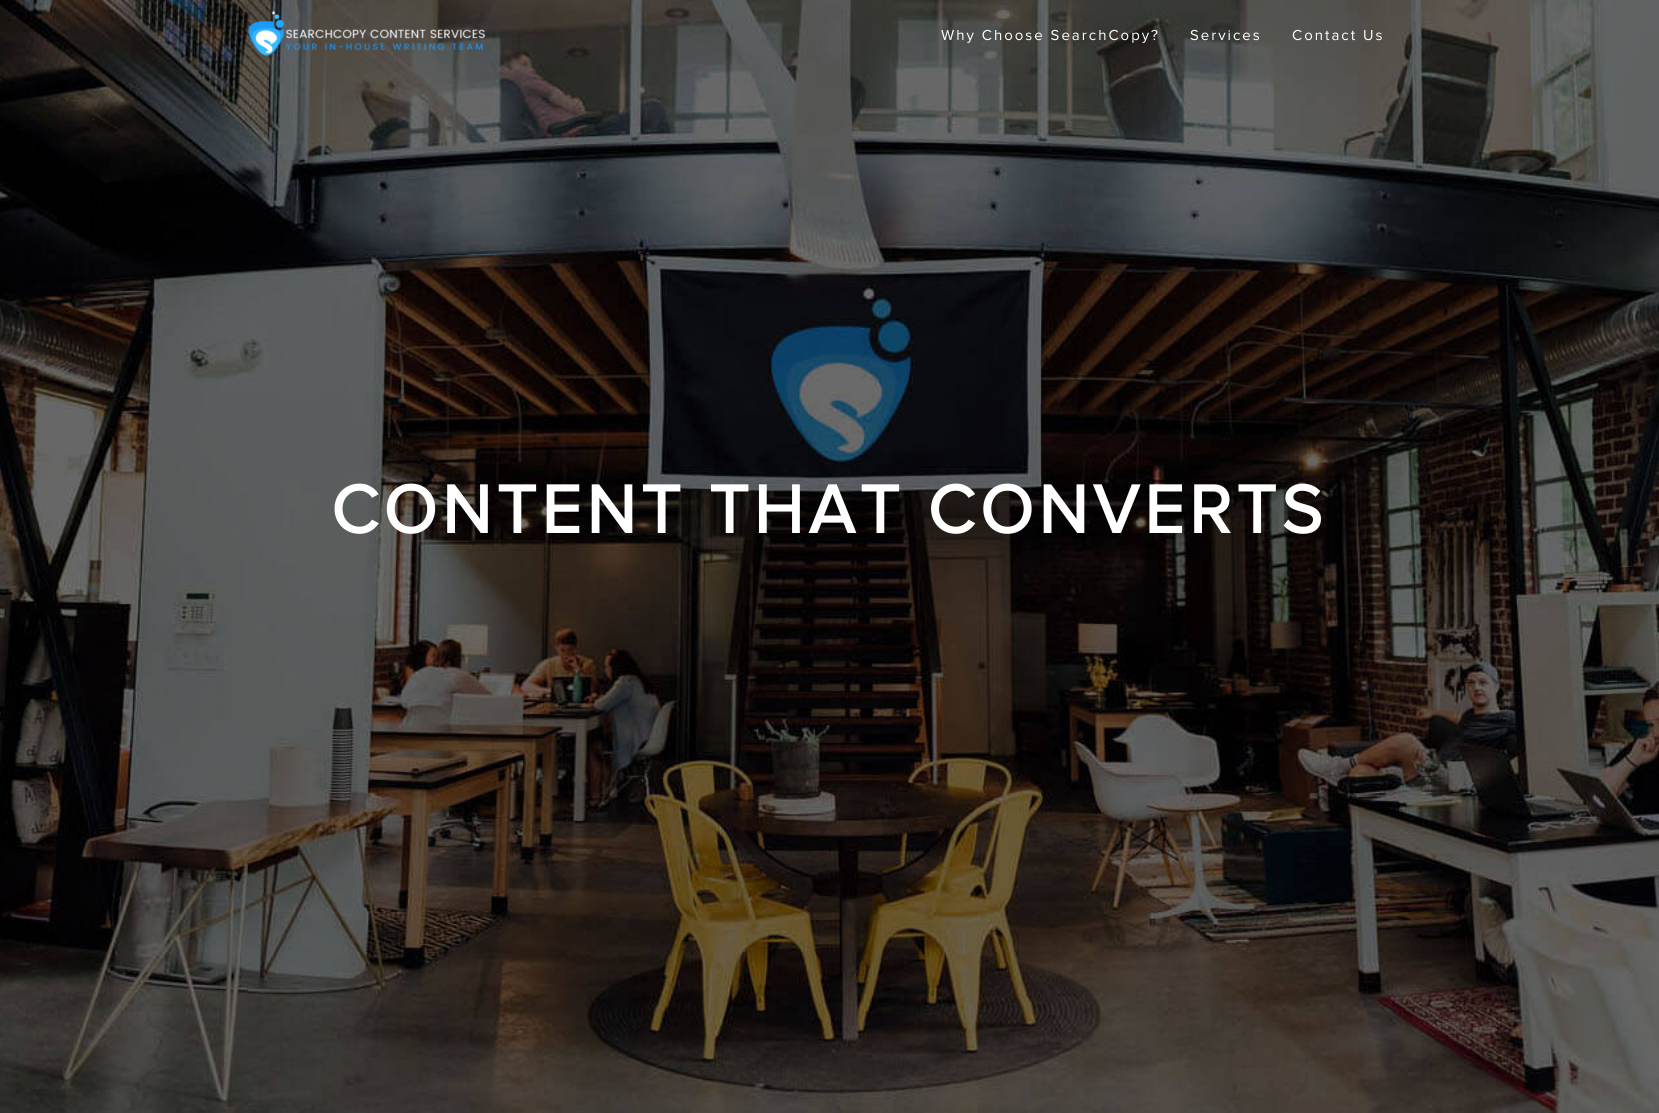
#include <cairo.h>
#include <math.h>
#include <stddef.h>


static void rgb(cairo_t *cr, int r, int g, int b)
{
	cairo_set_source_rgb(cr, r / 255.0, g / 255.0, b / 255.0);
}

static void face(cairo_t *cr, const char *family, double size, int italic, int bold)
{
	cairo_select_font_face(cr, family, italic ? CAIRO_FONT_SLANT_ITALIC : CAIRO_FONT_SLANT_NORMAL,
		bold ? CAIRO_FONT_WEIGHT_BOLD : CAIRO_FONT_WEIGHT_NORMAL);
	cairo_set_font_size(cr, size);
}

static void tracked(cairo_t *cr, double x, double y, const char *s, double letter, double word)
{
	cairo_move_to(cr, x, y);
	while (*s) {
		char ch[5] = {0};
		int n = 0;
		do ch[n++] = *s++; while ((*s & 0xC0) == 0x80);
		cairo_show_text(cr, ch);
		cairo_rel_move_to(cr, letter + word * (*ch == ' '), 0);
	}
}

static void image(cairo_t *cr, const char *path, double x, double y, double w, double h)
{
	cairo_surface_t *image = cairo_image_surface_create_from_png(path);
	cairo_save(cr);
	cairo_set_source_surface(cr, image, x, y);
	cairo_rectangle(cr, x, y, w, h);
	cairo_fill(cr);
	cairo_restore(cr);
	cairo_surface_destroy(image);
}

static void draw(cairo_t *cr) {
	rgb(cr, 255, 255, 255);
	cairo_paint(cr);
	image(cr, "image1.png", 0, 0, 1659, 1113);
	image(cr, "image0.png", 248, 11, 237, 45);
	face(cr, "Proxima Nova", 15, 0, 0);
	rgb(cr, 255, 255, 255);
	tracked(cr, 941, 40, "Why Choose SearchCopy?", 2, 0);
	tracked(cr, 1190, 40, "Services", 2, 0);
	tracked(cr, 1292, 40, "Contact Us", 2, 0);
	face(cr, "Proxima Nova", 70, 0, 1);
	tracked(cr, 331, 533, "CONTENT THAT CONVERTS", 5, 0);
}

int main(void) {
	cairo_surface_t *surface = cairo_image_surface_create(CAIRO_FORMAT_RGB24, 1659, 1113);
	cairo_t *cr = cairo_create(surface);
	cairo_font_options_t *options = cairo_font_options_create();
	cairo_font_options_set_hint_metrics(options, CAIRO_HINT_METRICS_OFF);
	cairo_font_options_set_hint_style(options, CAIRO_HINT_STYLE_NONE);
	cairo_set_font_options(cr, options);
	cairo_set_miter_limit(cr, 4);
	draw(cr);
	cairo_surface_write_to_png(surface, "render.png");
	cairo_font_options_destroy(options);
	cairo_destroy(cr);
	cairo_surface_destroy(surface);
	return 0;
}
